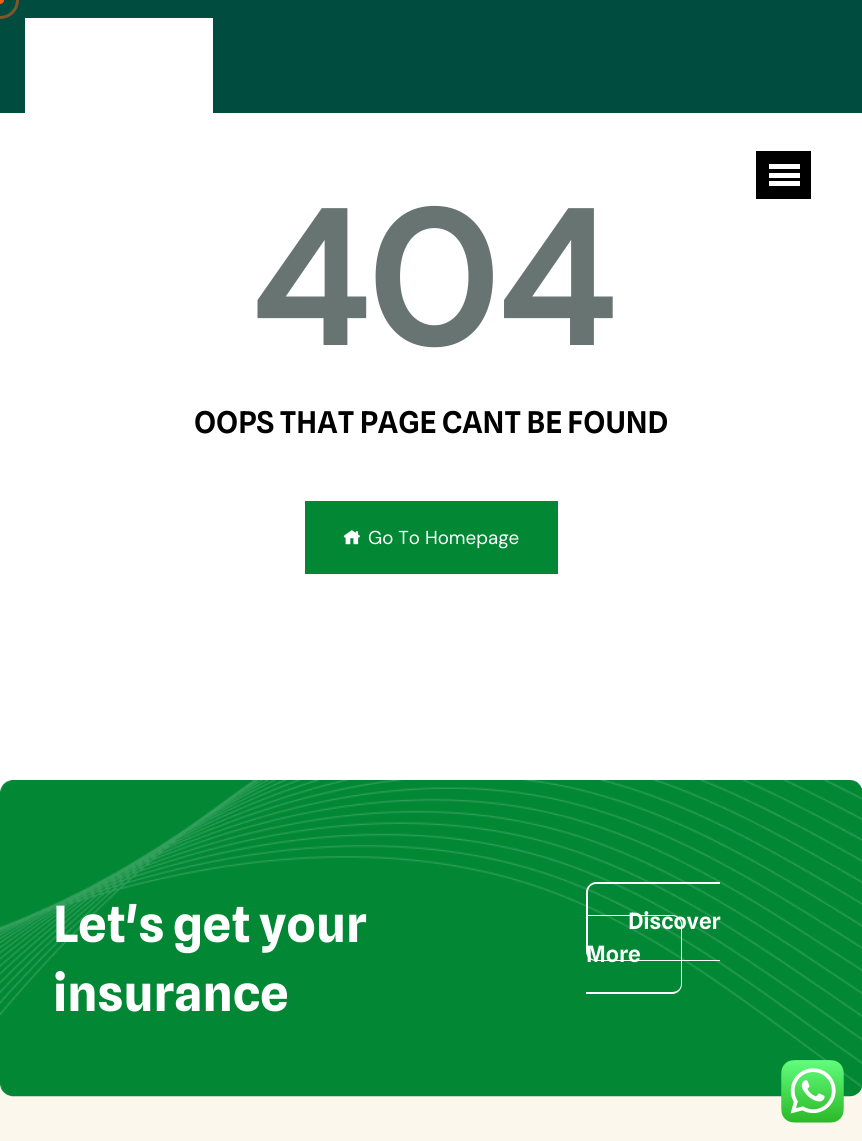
#include <cairo.h>
#include <math.h>
#include <stddef.h>


static void rgb(cairo_t *cr, int r, int g, int b)
{
	cairo_set_source_rgb(cr, r / 255.0, g / 255.0, b / 255.0);
}

static void face(cairo_t *cr, const char *family, double size, int italic, int bold)
{
	cairo_select_font_face(cr, family, italic ? CAIRO_FONT_SLANT_ITALIC : CAIRO_FONT_SLANT_NORMAL,
		bold ? CAIRO_FONT_WEIGHT_BOLD : CAIRO_FONT_WEIGHT_NORMAL);
	cairo_set_font_size(cr, size);
}

static void label(cairo_t *cr, double x, double y, const char *s)
{
	cairo_move_to(cr, x, y);
	cairo_show_text(cr, s);
}

static void rect(cairo_t *cr, double x, double y, double w, double h)
{
	cairo_rectangle(cr, x, y, w, h);
	cairo_fill(cr);
}

static void image(cairo_t *cr, const char *path, double x, double y, double w, double h)
{
	cairo_surface_t *image = cairo_image_surface_create_from_png(path);
	cairo_save(cr);
	cairo_set_source_surface(cr, image, x, y);
	cairo_rectangle(cr, x, y, w, h);
	cairo_fill(cr);
	cairo_restore(cr);
	cairo_surface_destroy(image);
}

static void draw(cairo_t *cr) {
	rgb(cr, 255, 255, 255);
	cairo_paint(cr);
	rgb(cr, 0, 76, 63);
	rect(cr, 0, 0, 862, 113);
	cairo_arc(cr, 0, 0, 17.5, 0, 2 * M_PI);
	rgb(cr, 127, 85, 42);
	cairo_set_line_width(cr, 3);
	cairo_stroke(cr);
	rgb(cr, 254, 93, 20);
	cairo_arc(cr, 0, 0, 4, 0, 2 * M_PI);
	cairo_fill(cr);
	rgb(cr, 255, 255, 255);
	rect(cr, 25, 18, 188, 95);
	rgb(cr, 0, 0, 0);
	rect(cr, 756, 151, 55, 48);
	rgb(cr, 255, 255, 255);
	rect(cr, 769, 164, 31, 5);
	rect(cr, 769, 173, 31, 5);
	rect(cr, 769, 181, 31, 5);
	face(cr, "DM Sans", 188, 0, 1);
	rgb(cr, 103, 116, 113);
	label(cr, 250, 345, "404");
	face(cr, "Spline Sans SemiBold", 30, 0, 0);
	rgb(cr, 0, 0, 0);
	label(cr, 194, 433, "OOPS THAT PAGE CANT BE FOUND");
	rgb(cr, 2, 136, 53);
	rect(cr, 305, 501, 253, 73);
	image(cr, "image0.png", 343, 530, 17, 15);
	face(cr, "DM Sans", 18.75, 0, 0);
	rgb(cr, 255, 255, 255);
	label(cr, 368, 544, "Go To Homepage");
	rgb(cr, 251, 247, 237);
	rect(cr, 0, 1084, 862, 57);
	image(cr, "image1.png", 0, 780, 862, 317);
	face(cr, "Spline Sans", 50, 0, 1);
	rgb(cr, 255, 255, 255);
	label(cr, 53, 942, "Let's get your");
	label(cr, 53, 1011, "insurance");
	cairo_set_fill_rule(cr, CAIRO_FILL_RULE_EVEN_ODD);
	cairo_new_path(cr);
	cairo_move_to(cr, 596, 882);
	cairo_line_to(cr, 720, 882);
	cairo_line_to(cr, 720, 961);
	cairo_line_to(cr, 596, 961);
	cairo_curve_to(cr, 591, 961, 586, 957, 586, 951);
	cairo_line_to(cr, 586, 892);
	cairo_curve_to(cr, 586, 887, 591, 882, 596, 882);
	cairo_close_path(cr);
	cairo_move_to(cr, 596, 884);
	cairo_line_to(cr, 720, 884);
	cairo_line_to(cr, 720, 960);
	cairo_line_to(cr, 596, 960);
	cairo_curve_to(cr, 591, 960, 588, 956, 588, 951);
	cairo_line_to(cr, 588, 892);
	cairo_curve_to(cr, 588, 888, 591, 884, 596, 884);
	cairo_close_path(cr);
	cairo_fill(cr);
	cairo_new_path(cr);
	cairo_move_to(cr, 586, 915);
	cairo_line_to(cr, 672, 915);
	cairo_curve_to(cr, 678, 915, 682, 919, 682, 925);
	cairo_line_to(cr, 682, 984);
	cairo_curve_to(cr, 682, 989, 678, 994, 672, 994);
	cairo_line_to(cr, 586, 994);
	cairo_close_path(cr);
	cairo_move_to(cr, 586, 916);
	cairo_line_to(cr, 672, 916);
	cairo_curve_to(cr, 677, 916, 681, 920, 681, 925);
	cairo_line_to(cr, 681, 984);
	cairo_curve_to(cr, 681, 989, 677, 992, 672, 992);
	cairo_line_to(cr, 586, 992);
	cairo_close_path(cr);
	cairo_fill(cr);
	face(cr, "Spline Sans SemiBold", 22.5, 0, 0);
	label(cr, 628, 929, "Discover");
	label(cr, 586, 962, "More");
	image(cr, "image2.png", 781, 1060, 63, 63);
}

int main(void) {
	cairo_surface_t *surface = cairo_image_surface_create(CAIRO_FORMAT_RGB24, 862, 1141);
	cairo_t *cr = cairo_create(surface);
	cairo_font_options_t *options = cairo_font_options_create();
	cairo_font_options_set_hint_metrics(options, CAIRO_HINT_METRICS_OFF);
	cairo_font_options_set_hint_style(options, CAIRO_HINT_STYLE_NONE);
	cairo_set_font_options(cr, options);
	cairo_set_miter_limit(cr, 4);
	draw(cr);
	cairo_surface_write_to_png(surface, "render.png");
	cairo_font_options_destroy(options);
	cairo_destroy(cr);
	cairo_surface_destroy(surface);
	return 0;
}
